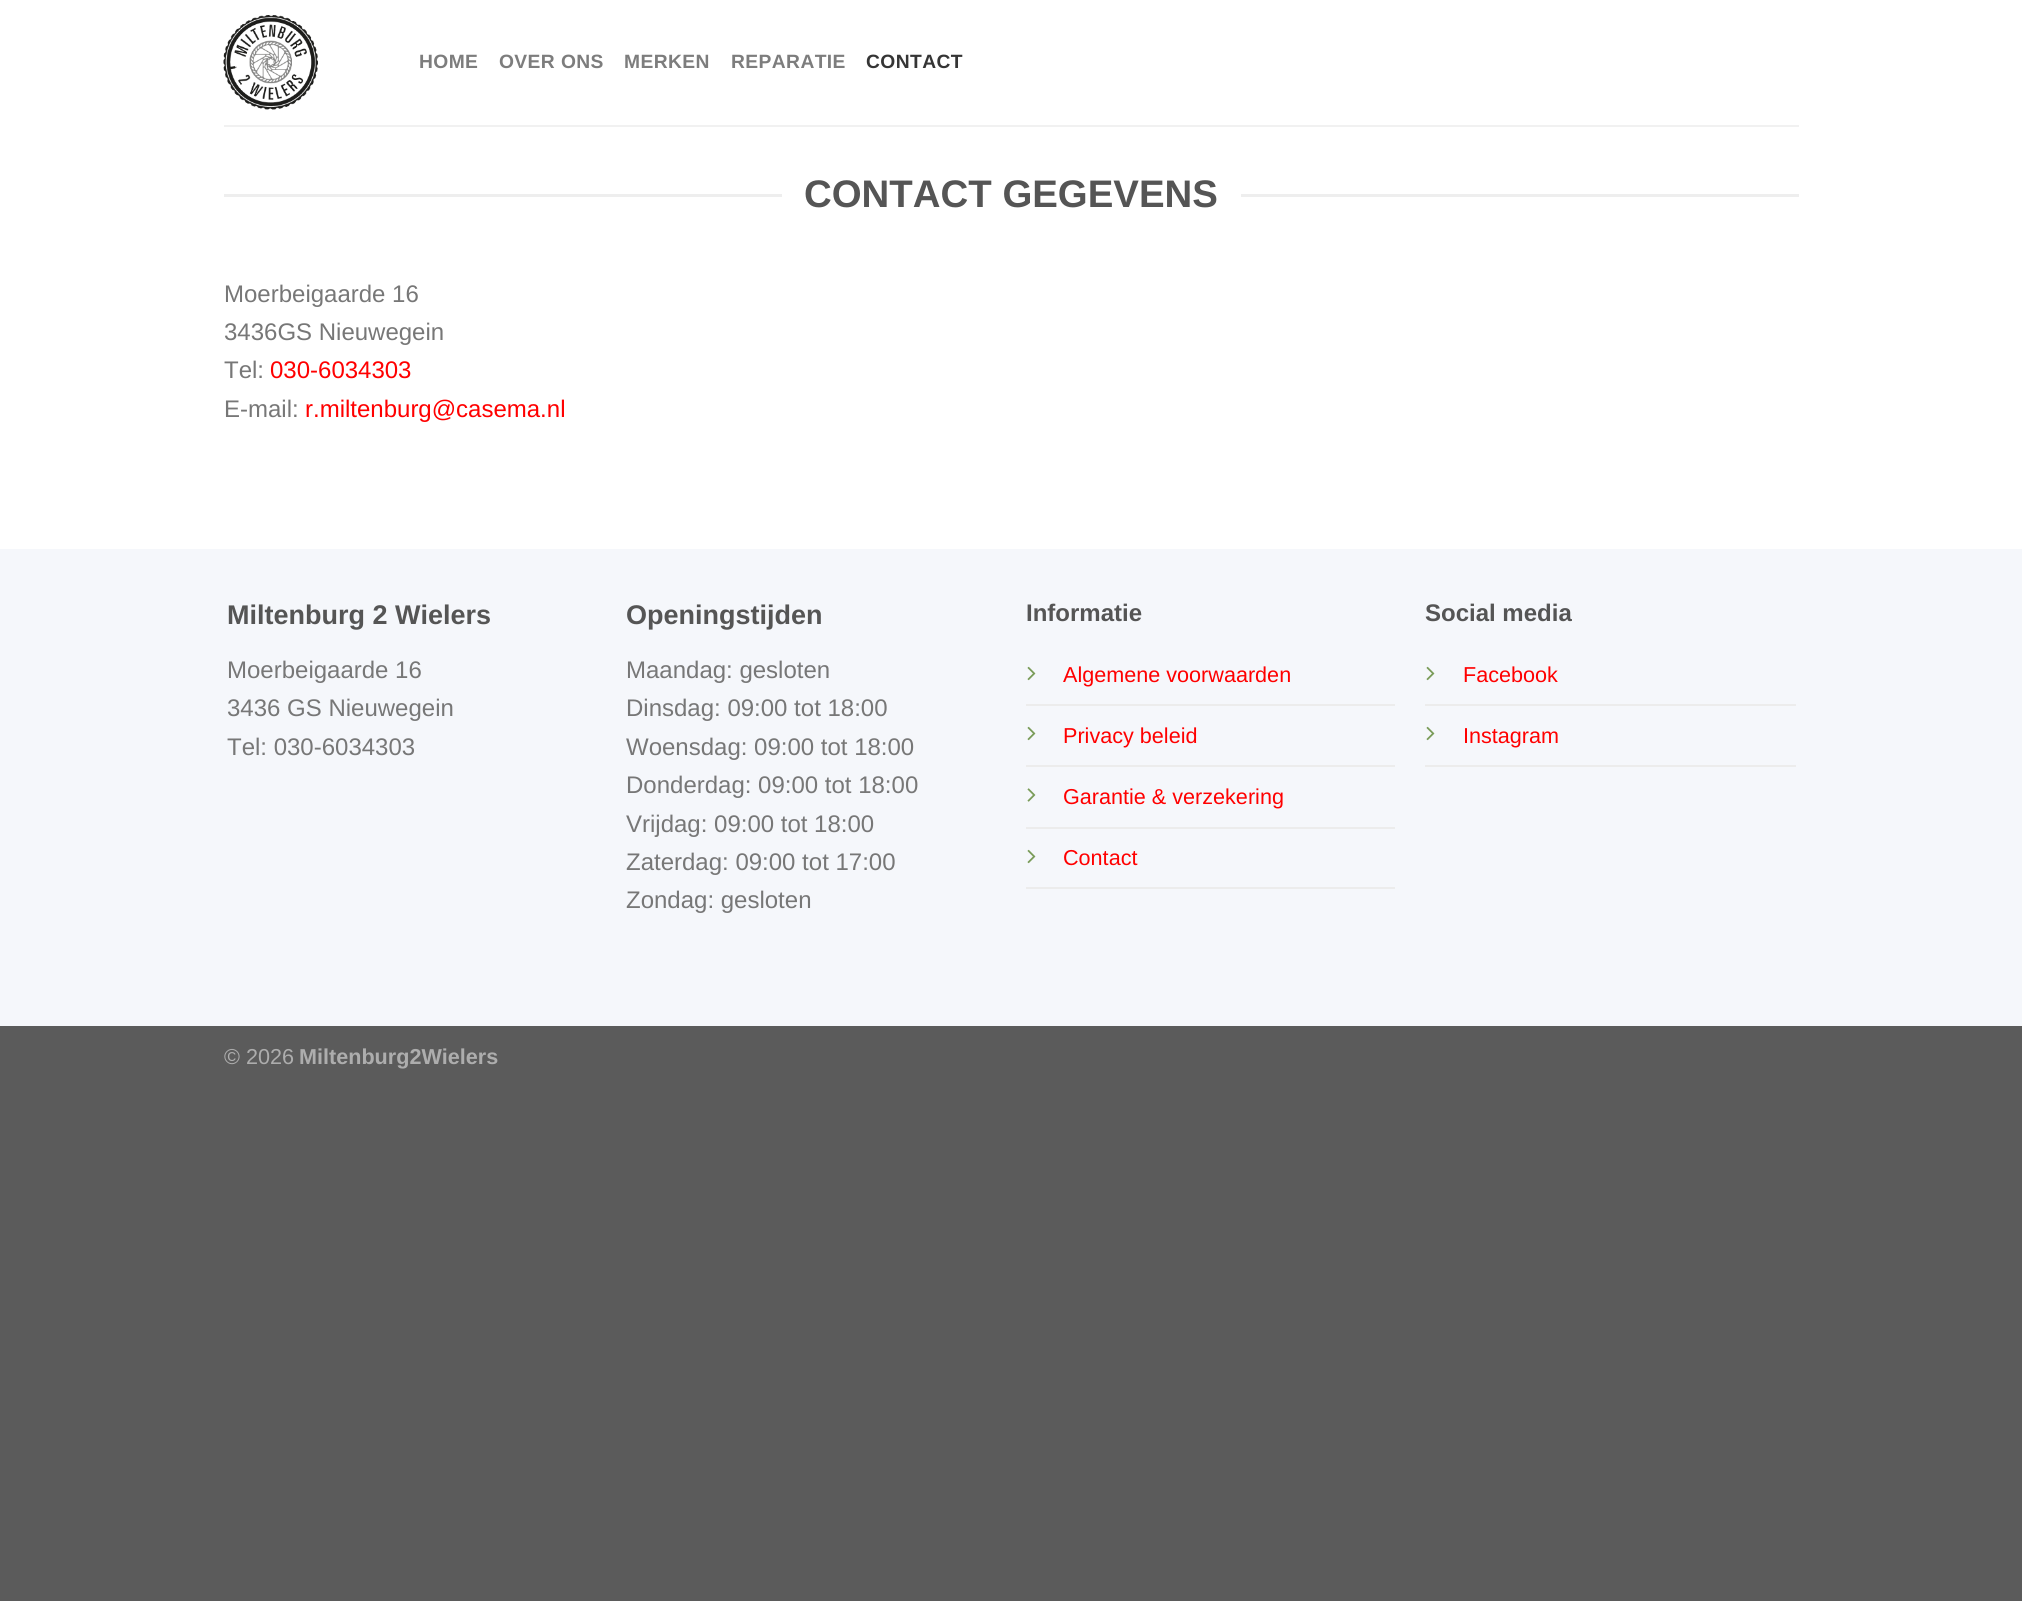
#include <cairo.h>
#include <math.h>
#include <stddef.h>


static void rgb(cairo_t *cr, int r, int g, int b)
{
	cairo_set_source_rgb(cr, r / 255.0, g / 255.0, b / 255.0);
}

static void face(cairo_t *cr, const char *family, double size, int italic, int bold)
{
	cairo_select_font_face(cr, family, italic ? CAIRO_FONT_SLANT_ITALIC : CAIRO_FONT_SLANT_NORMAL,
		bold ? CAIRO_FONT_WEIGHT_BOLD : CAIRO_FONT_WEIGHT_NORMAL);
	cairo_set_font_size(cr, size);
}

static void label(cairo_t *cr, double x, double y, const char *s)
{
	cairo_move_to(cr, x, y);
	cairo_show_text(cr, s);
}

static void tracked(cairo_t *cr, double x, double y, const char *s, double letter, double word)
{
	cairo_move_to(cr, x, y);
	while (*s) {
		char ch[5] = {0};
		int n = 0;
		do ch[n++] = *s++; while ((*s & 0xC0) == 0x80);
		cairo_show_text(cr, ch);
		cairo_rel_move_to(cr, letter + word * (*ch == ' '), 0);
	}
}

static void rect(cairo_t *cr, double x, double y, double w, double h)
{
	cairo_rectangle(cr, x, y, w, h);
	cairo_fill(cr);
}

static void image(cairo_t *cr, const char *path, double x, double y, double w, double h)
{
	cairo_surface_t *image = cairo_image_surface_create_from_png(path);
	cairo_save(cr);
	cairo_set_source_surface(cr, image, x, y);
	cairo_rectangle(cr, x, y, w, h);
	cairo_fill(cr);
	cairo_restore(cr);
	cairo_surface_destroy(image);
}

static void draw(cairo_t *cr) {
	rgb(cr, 91, 91, 91);
	cairo_paint(cr);
	rgb(cr, 255, 255, 255);
	rect(cr, 0, 0, 2022, 549);
	image(cr, "image0.png", 223, 15, 95, 95);
	face(cr, "Liberation Sans", 19.25, 0, 1);
	rgb(cr, 125, 125, 125);
	tracked(cr, 419, 68, "HOME", 0.4, 0);
	tracked(cr, 499, 68, "OVER ONS", 0.4, 0);
	tracked(cr, 624, 68, "MERKEN", 0.4, 0);
	tracked(cr, 731, 68, "REPARATIE", 0.4, 0);
	rgb(cr, 53, 53, 53);
	tracked(cr, 866, 68, "CONTACT", 0.4, 0);
	rgb(cr, 241, 241, 241);
	rect(cr, 224, 125, 1575, 2);
	rgb(cr, 238, 238, 238);
	rect(cr, 224, 194, 558, 3);
	face(cr, "Liberation Sans", 38.4, 0, 1);
	rgb(cr, 85, 85, 85);
	label(cr, 804, 207, "CONTACT GEGEVENS");
	rgb(cr, 238, 238, 238);
	rect(cr, 1241, 194, 558, 3);
	face(cr, "Liberation Sans", 24, 0, 0);
	rgb(cr, 119, 119, 119);
	label(cr, 224, 302, "Moerbeigaarde 16");
	label(cr, 224, 340, "3436GS Nieuwegein");
	label(cr, 224, 378, "Tel:");
	rgb(cr, 255, 0, 0);
	label(cr, 270, 378, "030-6034303");
	rgb(cr, 119, 119, 119);
	label(cr, 224, 417, "E-mail:");
	rgb(cr, 255, 0, 0);
	label(cr, 305, 417, "r.miltenburg@casema.nl");
	rgb(cr, 245, 247, 251);
	rect(cr, 0, 549, 2022, 477);
	face(cr, "Liberation Sans", 27, 0, 1);
	rgb(cr, 85, 85, 85);
	label(cr, 227, 624, "Miltenburg 2 Wielers");
	face(cr, "Liberation Sans", 24, 0, 0);
	rgb(cr, 119, 119, 119);
	label(cr, 227, 678, "Moerbeigaarde 16");
	label(cr, 227, 716, "3436 GS Nieuwegein");
	label(cr, 227, 755, "Tel: 030-6034303");
	face(cr, "Liberation Sans", 27, 0, 1);
	rgb(cr, 85, 85, 85);
	label(cr, 626, 624, "Openingstijden");
	face(cr, "Liberation Sans", 24, 0, 0);
	rgb(cr, 119, 119, 119);
	label(cr, 626, 678, "Maandag: gesloten");
	label(cr, 626, 716, "Dinsdag: 09:00 tot 18:00");
	label(cr, 626, 755, "Woensdag: 09:00 tot 18:00");
	label(cr, 626, 793, "Donderdag: 09:00 tot 18:00");
	label(cr, 626, 832, "Vrijdag: 09:00 tot 18:00");
	label(cr, 626, 870, "Zaterdag: 09:00 tot 17:00");
	label(cr, 626, 908, "Zondag: gesloten");
	face(cr, "Liberation Sans", 24, 0, 1);
	rgb(cr, 85, 85, 85);
	label(cr, 1026, 621, "Informatie");
	rgb(cr, 236, 236, 236);
	rect(cr, 1026, 704, 369, 2);
	image(cr, "image1.png", 1027, 666, 9, 15);
	face(cr, "Liberation Sans", 21.6, 0, 0);
	rgb(cr, 255, 0, 0);
	label(cr, 1063, 682, "Algemene voorwaarden");
	rgb(cr, 236, 236, 236);
	rect(cr, 1026, 765, 369, 2);
	image(cr, "image1.png", 1027, 726, 9, 15);
	rgb(cr, 255, 0, 0);
	label(cr, 1063, 743, "Privacy beleid");
	rgb(cr, 236, 236, 236);
	rect(cr, 1026, 827, 369, 2);
	image(cr, "image2.png", 1027, 788, 9, 14);
	rgb(cr, 255, 0, 0);
	label(cr, 1063, 804, "Garantie & verzekering");
	rgb(cr, 236, 236, 236);
	rect(cr, 1026, 887, 369, 2);
	image(cr, "image1.png", 1027, 849, 9, 15);
	rgb(cr, 255, 0, 0);
	label(cr, 1063, 865, "Contact");
	face(cr, "Liberation Sans", 24, 0, 1);
	rgb(cr, 85, 85, 85);
	label(cr, 1425, 621, "Social media");
	rgb(cr, 236, 236, 236);
	rect(cr, 1425, 704, 371, 2);
	image(cr, "image1.png", 1426, 666, 9, 15);
	face(cr, "Liberation Sans", 21.6, 0, 0);
	rgb(cr, 255, 0, 0);
	label(cr, 1463, 682, "Facebook");
	rgb(cr, 236, 236, 236);
	rect(cr, 1425, 765, 371, 2);
	image(cr, "image1.png", 1426, 726, 9, 15);
	rgb(cr, 255, 0, 0);
	label(cr, 1463, 743, "Instagram");
	rgb(cr, 173, 173, 173);
	label(cr, 224, 1064, "© 2026");
	face(cr, "Liberation Sans", 21.6, 0, 1);
	label(cr, 299, 1064, "Miltenburg2Wielers");
}

int main(void) {
	cairo_surface_t *surface = cairo_image_surface_create(CAIRO_FORMAT_RGB24, 2022, 1601);
	cairo_t *cr = cairo_create(surface);
	cairo_font_options_t *options = cairo_font_options_create();
	cairo_font_options_set_hint_metrics(options, CAIRO_HINT_METRICS_OFF);
	cairo_font_options_set_hint_style(options, CAIRO_HINT_STYLE_NONE);
	cairo_set_font_options(cr, options);
	cairo_set_miter_limit(cr, 4);
	draw(cr);
	cairo_surface_write_to_png(surface, "render.png");
	cairo_font_options_destroy(options);
	cairo_destroy(cr);
	cairo_surface_destroy(surface);
	return 0;
}
